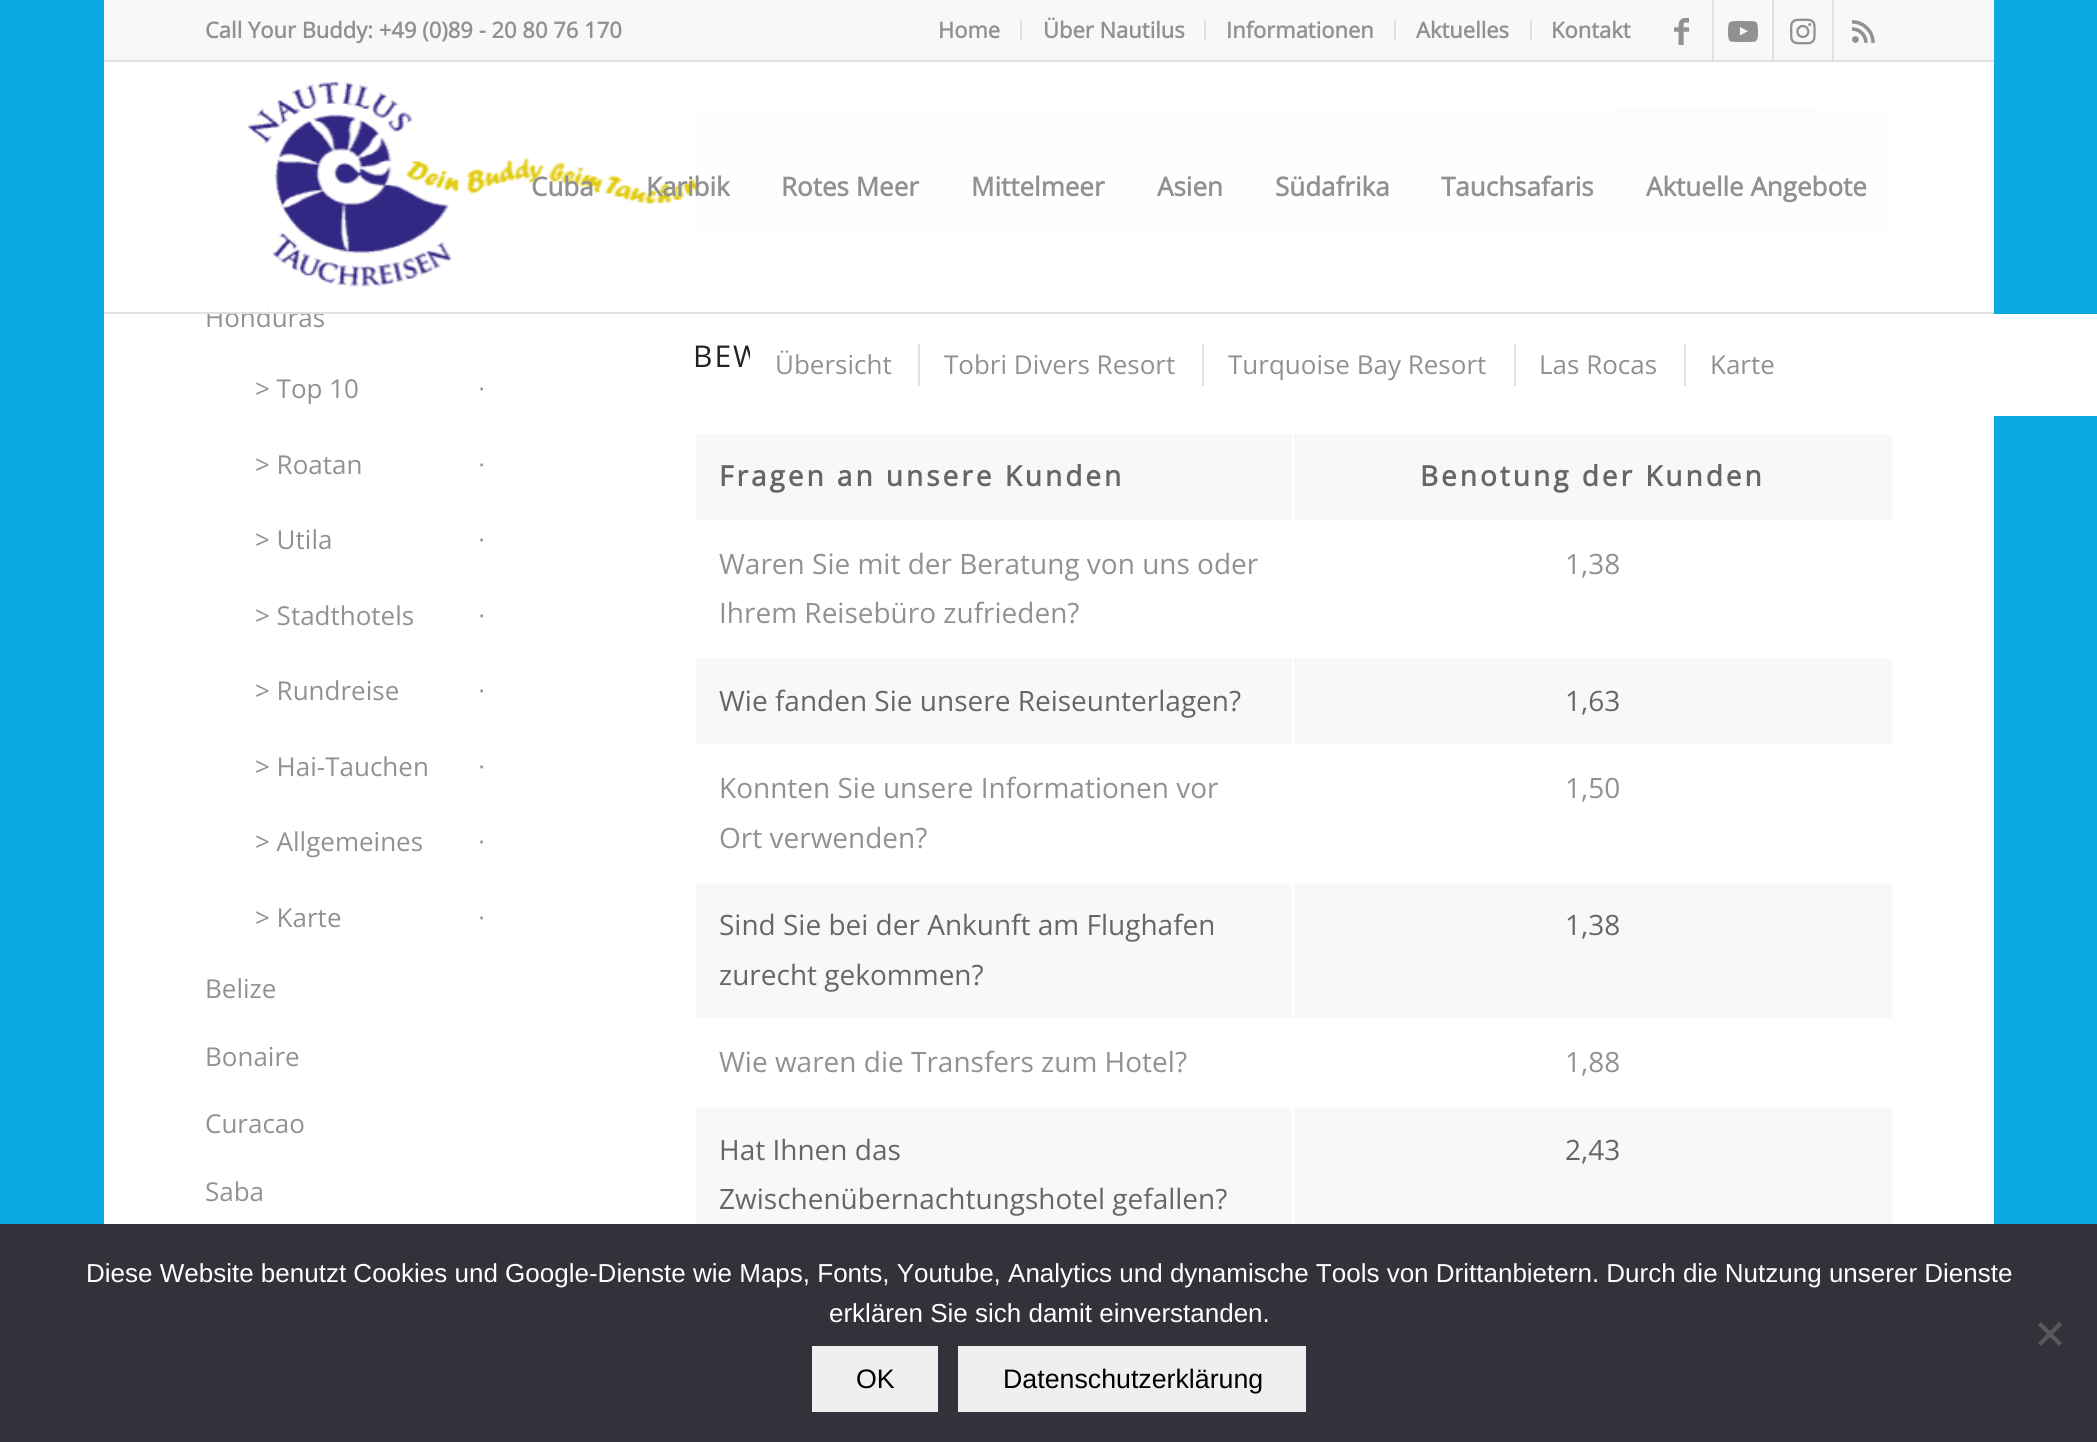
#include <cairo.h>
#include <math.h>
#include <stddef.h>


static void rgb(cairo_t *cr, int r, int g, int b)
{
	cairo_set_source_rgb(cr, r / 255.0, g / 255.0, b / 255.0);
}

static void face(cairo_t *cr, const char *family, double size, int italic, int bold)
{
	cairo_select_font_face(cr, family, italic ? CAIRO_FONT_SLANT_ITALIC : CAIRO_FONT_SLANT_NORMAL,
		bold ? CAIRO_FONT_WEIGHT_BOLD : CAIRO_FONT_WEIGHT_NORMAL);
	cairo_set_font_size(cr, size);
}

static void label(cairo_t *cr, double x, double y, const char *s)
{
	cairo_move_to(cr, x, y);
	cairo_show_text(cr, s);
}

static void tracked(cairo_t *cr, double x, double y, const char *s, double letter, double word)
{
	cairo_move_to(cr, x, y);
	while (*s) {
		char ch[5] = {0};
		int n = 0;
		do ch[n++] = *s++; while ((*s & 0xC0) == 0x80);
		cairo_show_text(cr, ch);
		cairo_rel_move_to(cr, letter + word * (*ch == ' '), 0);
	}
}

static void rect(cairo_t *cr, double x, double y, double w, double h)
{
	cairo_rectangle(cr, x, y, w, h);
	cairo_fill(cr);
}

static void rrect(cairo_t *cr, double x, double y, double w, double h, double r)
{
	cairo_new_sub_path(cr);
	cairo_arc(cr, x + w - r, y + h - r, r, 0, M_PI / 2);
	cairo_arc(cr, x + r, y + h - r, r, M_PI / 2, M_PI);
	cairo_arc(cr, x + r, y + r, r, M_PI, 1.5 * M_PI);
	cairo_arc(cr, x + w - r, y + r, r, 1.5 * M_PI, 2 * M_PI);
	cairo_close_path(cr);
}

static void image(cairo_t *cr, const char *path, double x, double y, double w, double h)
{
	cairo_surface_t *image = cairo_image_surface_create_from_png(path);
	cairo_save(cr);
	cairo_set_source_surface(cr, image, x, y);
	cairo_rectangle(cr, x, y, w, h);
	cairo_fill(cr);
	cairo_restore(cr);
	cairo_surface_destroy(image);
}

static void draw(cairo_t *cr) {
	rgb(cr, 9, 169, 227);
	cairo_paint(cr);
	rgb(cr, 248, 248, 248);
	rect(cr, 104, 0, 1890, 60);
	rgb(cr, 225, 225, 225);
	rect(cr, 104, 60, 1890, 2);
	face(cr, "Open Sans", 22, 0, 1);
	rgb(cr, 145, 145, 145);
	label(cr, 205, 38, "Call Your Buddy: +49 (0)89 - 20 80 76 170");
	rgb(cr, 225, 225, 225);
	rect(cr, 1020, 20, 2, 20);
	rgb(cr, 145, 145, 145);
	label(cr, 938, 38, "Home");
	rgb(cr, 225, 225, 225);
	rect(cr, 1204, 20, 2, 20);
	rgb(cr, 145, 145, 145);
	label(cr, 1043, 38, "Über Nautilus");
	rgb(cr, 225, 225, 225);
	rect(cr, 1394, 20, 2, 20);
	rgb(cr, 145, 145, 145);
	label(cr, 1226, 38, "Informationen");
	rgb(cr, 225, 225, 225);
	rect(cr, 1530, 20, 2, 20);
	rgb(cr, 145, 145, 145);
	label(cr, 1416, 38, "Aktuelles");
	label(cr, 1551, 38, "Kontakt");
	rgb(cr, 225, 225, 225);
	rect(cr, 1712, 0, 2, 60);
	image(cr, "image0.png", 1674, 18, 15, 27);
	rect(cr, 1772, 0, 2, 60);
	image(cr, "image1.png", 1728, 20, 30, 23);
	rect(cr, 1832, 0, 2, 60);
	image(cr, "image2.png", 1790, 18, 26, 27);
	image(cr, "image3.png", 1852, 20, 23, 23);
	rgb(cr, 255, 255, 255);
	rect(cr, 104, 62, 1890, 1162);
	face(cr, "Open Sans", 26, 0, 0);
	rgb(cr, 145, 145, 145);
	label(cr, 205, 327, "Honduras");
	rgb(cr, 237, 237, 237);
	rrect(cr, 695, 105, 1198, 134, 1);
	cairo_fill_preserve(cr);
	rgb(cr, 255, 255, 255);
	cairo_stroke(cr);
	rgb(cr, 191, 191, 191);
	rect(cr, 1616, 106, 200, 66);
	cairo_set_source_rgba(cr, 1, 1, 1, 0.95);
	rect(cr, 207, 104, 1687, 208);
	rgb(cr, 225, 225, 225);
	rect(cr, 104, 312, 1890, 2);
	image(cr, "image4.png", 247, 81, 453, 206);
	face(cr, "Open Sans", 26, 0, 1);
	rgb(cr, 145, 145, 145);
	label(cr, 531, 196, "Cuba");
	label(cr, 646, 196, "Karibik");
	label(cr, 781, 196, "Rotes Meer");
	label(cr, 971, 196, "Mittelmeer");
	label(cr, 1157, 196, "Asien");
	label(cr, 1275, 196, "Südafrika");
	label(cr, 1441, 196, "Tauchsafaris");
	label(cr, 1646, 196, "Aktuelle Angebote");
	face(cr, "Open Sans", 26, 0, 0);
	label(cr, 255, 398, "> Top 10");
	face(cr, "Liberation Sans", 26, 0, 0);
	label(cr, 478, 396, "∙");
	face(cr, "Open Sans", 26, 0, 0);
	label(cr, 255, 474, "> Roatan");
	face(cr, "Liberation Sans", 26, 0, 0);
	label(cr, 478, 472, "∙");
	face(cr, "Open Sans", 26, 0, 0);
	label(cr, 255, 549, "> Utila");
	face(cr, "Liberation Sans", 26, 0, 0);
	label(cr, 478, 547, "∙");
	face(cr, "Open Sans", 26, 0, 0);
	label(cr, 255, 625, "> Stadthotels");
	face(cr, "Liberation Sans", 26, 0, 0);
	label(cr, 478, 623, "∙");
	face(cr, "Open Sans", 26, 0, 0);
	label(cr, 255, 700, "> Rundreise");
	face(cr, "Liberation Sans", 26, 0, 0);
	label(cr, 478, 698, "∙");
	face(cr, "Open Sans", 26, 0, 0);
	label(cr, 255, 776, "> Hai-Tauchen");
	face(cr, "Liberation Sans", 26, 0, 0);
	label(cr, 478, 774, "∙");
	face(cr, "Open Sans", 26, 0, 0);
	label(cr, 255, 851, "> Allgemeines");
	face(cr, "Liberation Sans", 26, 0, 0);
	label(cr, 478, 849, "∙");
	face(cr, "Open Sans", 26, 0, 0);
	label(cr, 255, 927, "> Karte");
	face(cr, "Liberation Sans", 26, 0, 0);
	label(cr, 478, 925, "∙");
	face(cr, "Open Sans", 26, 0, 0);
	label(cr, 205, 998, "Belize");
	label(cr, 205, 1066, "Bonaire");
	label(cr, 205, 1133, "Curacao");
	label(cr, 205, 1201, "Saba");
	face(cr, "Open Sans", 30, 0, 0);
	rgb(cr, 34, 34, 34);
	tracked(cr, 693, 367, "BEW", 2, 0);
	rgb(cr, 248, 248, 248);
	rect(cr, 696, 434, 1196, 790);
	rgb(cr, 255, 255, 255);
	rect(cr, 696, 520, 1196, 138);
	rect(cr, 1292, 432, 2, 90);
	face(cr, "Open Sans", 28, 0, 1);
	rgb(cr, 102, 102, 102);
	tracked(cr, 719, 486, "Fragen an unsere Kunden", 3, 0);
	tracked(cr, 1420, 486, "Benotung der Kunden", 3, 0);
	face(cr, "Open Sans", 28, 0, 0);
	rgb(cr, 145, 145, 145);
	label(cr, 719, 574, "Waren Sie mit der Beratung von uns oder");
	label(cr, 719, 623, "Ihrem Reisebüro zufrieden?");
	label(cr, 1565, 574, "1,38");
	rgb(cr, 255, 255, 255);
	rect(cr, 1292, 744, 602, 2);
	rect(cr, 1292, 656, 2, 90);
	rect(cr, 694, 744, 600, 2);
	rgb(cr, 102, 102, 102);
	label(cr, 719, 711, "Wie fanden Sie unsere Reiseunterlagen?");
	label(cr, 1565, 711, "1,63");
	rgb(cr, 255, 255, 255);
	rect(cr, 696, 746, 1196, 136);
	rgb(cr, 145, 145, 145);
	label(cr, 719, 798, "Konnten Sie unsere Informationen vor");
	label(cr, 719, 848, "Ort verwenden?");
	rgb(cr, 255, 255, 255);
	rect(cr, 1292, 1018, 602, 2);
	rect(cr, 1292, 882, 2, 138);
	rect(cr, 694, 882, 1200, 2);
	rgb(cr, 145, 145, 145);
	label(cr, 1565, 798, "1,50");
	rgb(cr, 255, 255, 255);
	rect(cr, 694, 1018, 600, 2);
	rgb(cr, 102, 102, 102);
	label(cr, 719, 935, "Sind Sie bei der Ankunft am Flughafen");
	label(cr, 719, 985, "zurecht gekommen?");
	label(cr, 1565, 935, "1,38");
	rgb(cr, 255, 255, 255);
	rect(cr, 696, 1020, 1196, 86);
	rgb(cr, 145, 145, 145);
	label(cr, 719, 1072, "Wie waren die Transfers zum Hotel?");
	rgb(cr, 255, 255, 255);
	rect(cr, 1292, 1106, 2, 118);
	rect(cr, 694, 1106, 1200, 2);
	rgb(cr, 145, 145, 145);
	label(cr, 1565, 1072, "1,88");
	rgb(cr, 102, 102, 102);
	label(cr, 719, 1160, "Hat Ihnen das");
	label(cr, 719, 1209, "Zwischenübernachtungshotel gefallen?");
	label(cr, 1565, 1160, "2,43");
	rgb(cr, 255, 255, 255);
	rect(cr, 750, 314, 1347, 102);
	face(cr, "Open Sans", 26, 0, 0);
	rgb(cr, 145, 145, 145);
	label(cr, 775, 374, "Übersicht");
	rgb(cr, 225, 225, 225);
	rect(cr, 918, 344, 2, 42);
	rgb(cr, 145, 145, 145);
	label(cr, 944, 374, "Tobri Divers Resort");
	rgb(cr, 225, 225, 225);
	rect(cr, 1202, 344, 2, 42);
	rgb(cr, 145, 145, 145);
	label(cr, 1228, 374, "Turquoise Bay Resort");
	rgb(cr, 225, 225, 225);
	rect(cr, 1514, 344, 2, 42);
	rgb(cr, 145, 145, 145);
	label(cr, 1539, 374, "Las Rocas");
	rgb(cr, 225, 225, 225);
	rect(cr, 1684, 344, 2, 42);
	rgb(cr, 145, 145, 145);
	label(cr, 1710, 374, "Karte");
	rgb(cr, 50, 50, 58);
	rect(cr, 0, 1224, 2097, 218);
	face(cr, "Liberation Sans", 26, 0, 0);
	rgb(cr, 255, 255, 255);
	label(cr, 86, 1282, "Diese Website benutzt Cookies und Google-Dienste wie Maps, Fonts, Youtube, Analytics und dynamische Tools von Drittanbietern. Durch die Nutzung unserer Dienste");
	label(cr, 829, 1322, "erklären Sie sich damit einverstanden.");
	rgb(cr, 89, 89, 93);
	cairo_new_path(cr);
	cairo_move_to(cr, 2059, 1322);
	cairo_line_to(cr, 2062, 1325);
	cairo_line_to(cr, 2041, 1346);
	cairo_line_to(cr, 2038, 1343);
	cairo_close_path(cr);
	cairo_fill(cr);
	cairo_new_path(cr);
	cairo_move_to(cr, 2038, 1325);
	cairo_line_to(cr, 2041, 1322);
	cairo_line_to(cr, 2062, 1343);
	cairo_line_to(cr, 2059, 1346);
	cairo_close_path(cr);
	cairo_fill(cr);
	rgb(cr, 239, 239, 239);
	rect(cr, 812, 1346, 126, 66);
	face(cr, "Liberation Sans", 26.75, 0, 0);
	rgb(cr, 0, 0, 0);
	label(cr, 856, 1388, "OK");
	rgb(cr, 239, 239, 239);
	rect(cr, 958, 1346, 348, 66);
	rgb(cr, 0, 0, 0);
	label(cr, 1003, 1388, "Datenschutzerklärung");
}

int main(void) {
	cairo_surface_t *surface = cairo_image_surface_create(CAIRO_FORMAT_RGB24, 2097, 1442);
	cairo_t *cr = cairo_create(surface);
	cairo_font_options_t *options = cairo_font_options_create();
	cairo_font_options_set_hint_metrics(options, CAIRO_HINT_METRICS_OFF);
	cairo_font_options_set_hint_style(options, CAIRO_HINT_STYLE_NONE);
	cairo_set_font_options(cr, options);
	cairo_set_miter_limit(cr, 4);
	draw(cr);
	cairo_surface_write_to_png(surface, "render.png");
	cairo_font_options_destroy(options);
	cairo_destroy(cr);
	cairo_surface_destroy(surface);
	return 0;
}
